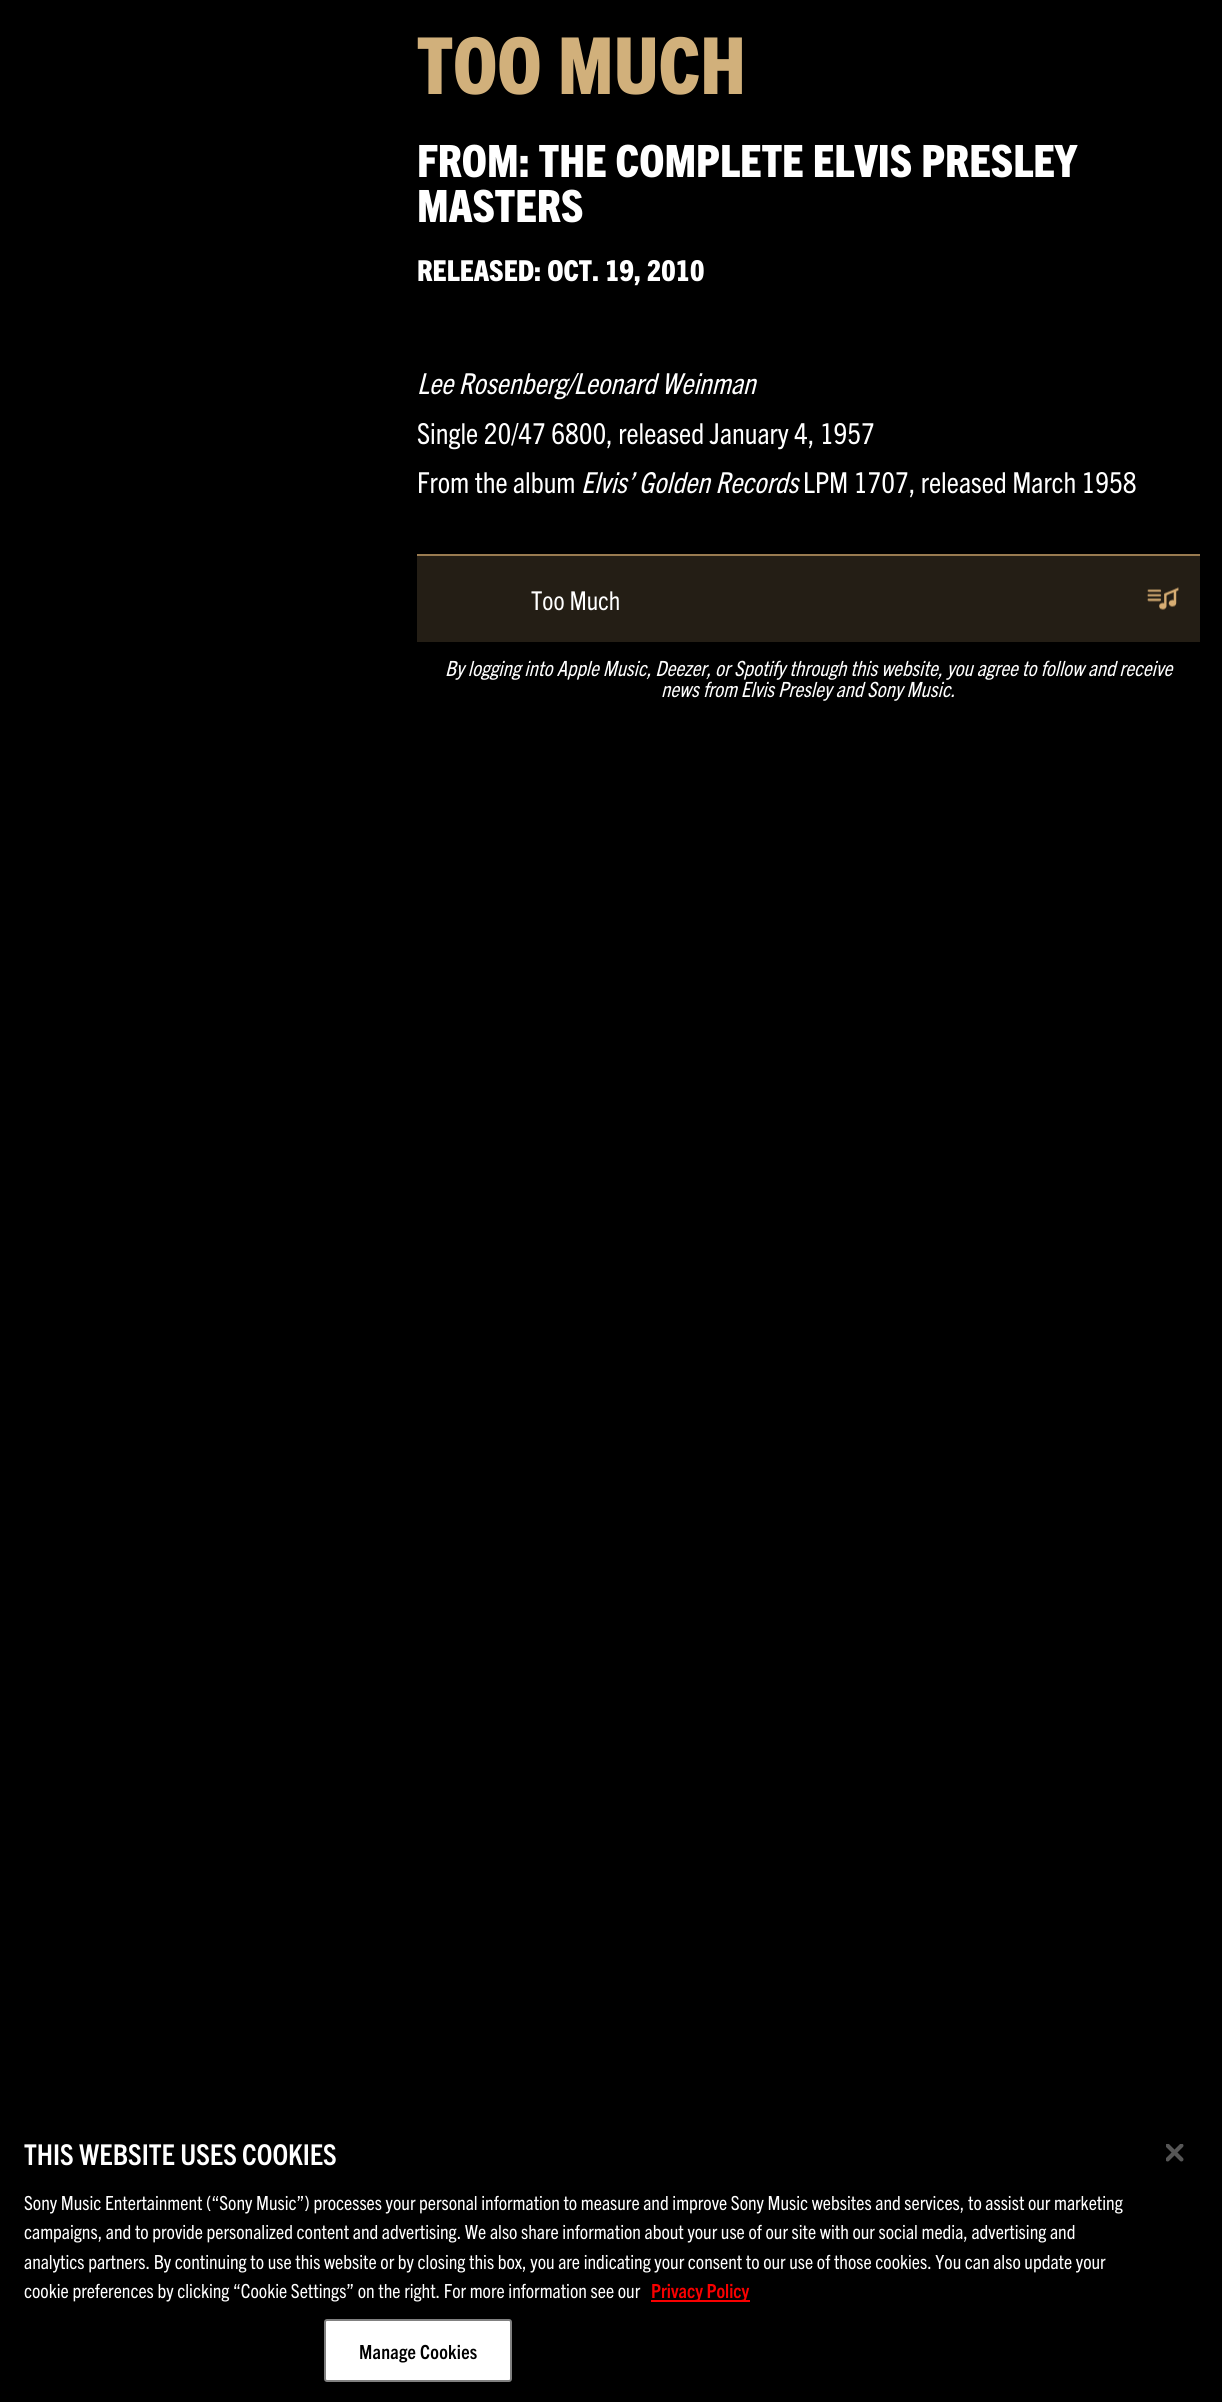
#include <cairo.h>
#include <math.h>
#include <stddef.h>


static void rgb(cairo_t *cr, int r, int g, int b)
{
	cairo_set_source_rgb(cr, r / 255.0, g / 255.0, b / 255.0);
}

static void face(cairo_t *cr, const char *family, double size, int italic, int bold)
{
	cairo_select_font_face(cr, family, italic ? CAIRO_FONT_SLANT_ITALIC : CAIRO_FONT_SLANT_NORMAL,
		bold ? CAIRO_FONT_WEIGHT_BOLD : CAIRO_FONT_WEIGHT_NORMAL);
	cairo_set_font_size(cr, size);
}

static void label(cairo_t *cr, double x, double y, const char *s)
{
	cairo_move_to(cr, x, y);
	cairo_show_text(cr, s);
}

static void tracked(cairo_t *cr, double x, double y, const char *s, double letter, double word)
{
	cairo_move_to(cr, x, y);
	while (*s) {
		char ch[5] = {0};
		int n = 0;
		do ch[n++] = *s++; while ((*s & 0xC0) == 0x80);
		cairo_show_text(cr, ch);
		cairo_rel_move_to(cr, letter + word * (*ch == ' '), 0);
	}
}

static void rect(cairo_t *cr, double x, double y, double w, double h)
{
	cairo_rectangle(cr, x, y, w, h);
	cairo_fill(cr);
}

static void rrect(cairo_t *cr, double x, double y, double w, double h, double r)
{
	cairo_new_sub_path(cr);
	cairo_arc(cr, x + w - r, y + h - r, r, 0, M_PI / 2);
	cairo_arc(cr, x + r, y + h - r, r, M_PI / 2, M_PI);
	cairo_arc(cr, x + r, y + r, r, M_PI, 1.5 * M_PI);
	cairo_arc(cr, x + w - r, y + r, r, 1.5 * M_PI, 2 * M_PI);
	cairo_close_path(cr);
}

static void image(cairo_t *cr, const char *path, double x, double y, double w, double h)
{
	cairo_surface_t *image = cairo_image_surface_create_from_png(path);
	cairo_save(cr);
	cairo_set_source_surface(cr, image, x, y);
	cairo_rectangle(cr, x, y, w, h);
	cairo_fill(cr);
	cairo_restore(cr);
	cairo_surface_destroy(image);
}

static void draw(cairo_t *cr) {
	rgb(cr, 0, 0, 0);
	cairo_paint(cr);
	face(cr, "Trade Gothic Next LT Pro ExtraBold", 78.75, 0, 0);
	rgb(cr, 209, 176, 123);
	label(cr, 417, 94, "TOO MUCH");
	face(cr, "Trade Gothic Next LT Pro ExtraBold", 44.6, 0, 0);
	rgb(cr, 255, 255, 255);
	label(cr, 417, 177, "FROM: THE COMPLETE ELVIS PRESLEY");
	label(cr, 417, 222, "MASTERS");
	face(cr, "Trade Gothic Next LT Pro ExtraBold", 28.9, 0, 0);
	label(cr, 417, 281, "RELEASED: OCT. 19, 2010");
	face(cr, "Trade Gothic Next LT Pro", 28.9, 1, 0);
	label(cr, 417, 394, "Lee Rosenberg/Leonard Weinman");
	face(cr, "Trade Gothic Next LT Pro", 28.9, 0, 0);
	label(cr, 417, 444, "Single 20/47 6800, released January 4, 1957");
	label(cr, 417, 493, "From the album");
	face(cr, "Trade Gothic Next LT Pro", 28.9, 1, 0);
	label(cr, 581, 493, "Elvis’ Golden Records");
	face(cr, "Trade Gothic Next LT Pro", 28.9, 0, 0);
	label(cr, 803, 493, "LPM 1707, released March 1958");
	rgb(cr, 36, 30, 21);
	rect(cr, 417, 556, 783, 86);
	rgb(cr, 153, 123, 80);
	rect(cr, 417, 554, 783, 2);
	face(cr, "Trade Gothic Next LT Pro", 26, 0, 0);
	rgb(cr, 255, 255, 255);
	label(cr, 531, 610, "Too Much");
	image(cr, "image0.png", 1147, 587, 32, 23);
	face(cr, "Trade Gothic Next LT Pro", 21, 1, 0);
	label(cr, 445, 676, "By logging into Apple Music, Deezer, or Spotify through this website, you agree to follow and receive");
	label(cr, 661, 697, "news from Elvis Presley and Sony Music.");
	face(cr, "Trade Gothic Next LT Pro", 28.75, 0, 1);
	label(cr, 24, 2165, "THIS WEBSITE USES COOKIES");
	face(cr, "Trade Gothic Next LT Pro", 19.5, 0, 0);
	label(cr, 24, 2210, "Sony Music Entertainment (“Sony Music”) processes your personal information to measure and improve Sony Music websites and services, to assist our marketing");
	label(cr, 24, 2239, "campaigns, and to provide personalized content and advertising. We also share information about your use of our site with our social media, advertising and");
	label(cr, 24, 2269, "analytics partners. By continuing to use this website or by closing this box, you are indicating your consent to our use of those cookies. You can also update your");
	label(cr, 24, 2298, "cookie preferences by clicking “Cookie Settings” on the right. For more information see our");
	rgb(cr, 249, 0, 0);
	rect(cr, 651, 2300, 99, 2);
	face(cr, "Trade Gothic Next LT Pro", 19.5, 0, 1);
	label(cr, 651, 2298, "Privacy Policy");
	rgb(cr, 255, 255, 255);
	rrect(cr, 325, 2320, 186, 61, 2);
	cairo_fill_preserve(cr);
	rgb(cr, 128, 128, 128);
	cairo_stroke(cr);
	rgb(cr, 0, 0, 0);
	tracked(cr, 359, 2359, "Manage Cookies", 0.25, 0);
	image(cr, "image1.png", 1166, 2144, 18, 18);
}

int main(void) {
	cairo_surface_t *surface = cairo_image_surface_create(CAIRO_FORMAT_RGB24, 1222, 2402);
	cairo_t *cr = cairo_create(surface);
	cairo_font_options_t *options = cairo_font_options_create();
	cairo_font_options_set_hint_metrics(options, CAIRO_HINT_METRICS_OFF);
	cairo_font_options_set_hint_style(options, CAIRO_HINT_STYLE_NONE);
	cairo_set_font_options(cr, options);
	cairo_set_miter_limit(cr, 4);
	draw(cr);
	cairo_surface_write_to_png(surface, "render.png");
	cairo_font_options_destroy(options);
	cairo_destroy(cr);
	cairo_surface_destroy(surface);
	return 0;
}
